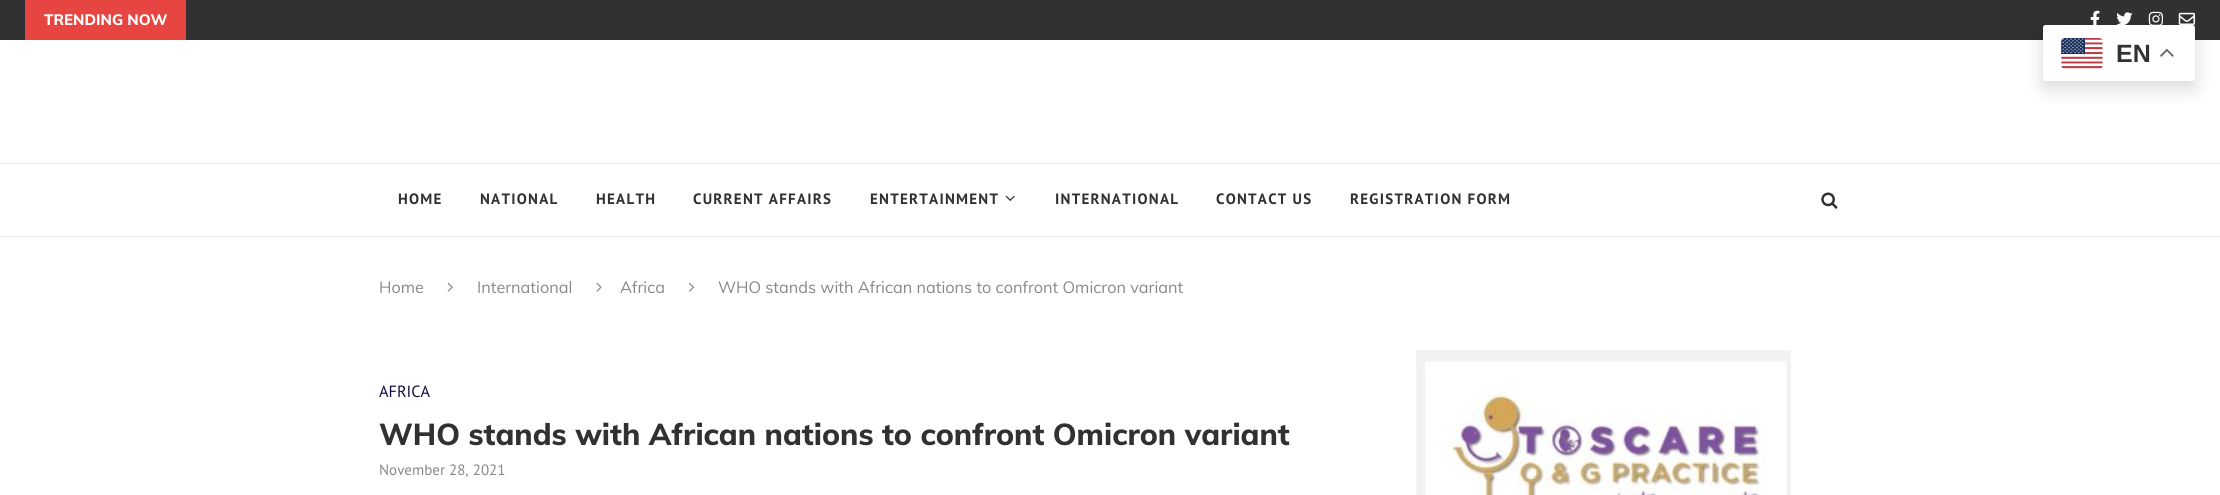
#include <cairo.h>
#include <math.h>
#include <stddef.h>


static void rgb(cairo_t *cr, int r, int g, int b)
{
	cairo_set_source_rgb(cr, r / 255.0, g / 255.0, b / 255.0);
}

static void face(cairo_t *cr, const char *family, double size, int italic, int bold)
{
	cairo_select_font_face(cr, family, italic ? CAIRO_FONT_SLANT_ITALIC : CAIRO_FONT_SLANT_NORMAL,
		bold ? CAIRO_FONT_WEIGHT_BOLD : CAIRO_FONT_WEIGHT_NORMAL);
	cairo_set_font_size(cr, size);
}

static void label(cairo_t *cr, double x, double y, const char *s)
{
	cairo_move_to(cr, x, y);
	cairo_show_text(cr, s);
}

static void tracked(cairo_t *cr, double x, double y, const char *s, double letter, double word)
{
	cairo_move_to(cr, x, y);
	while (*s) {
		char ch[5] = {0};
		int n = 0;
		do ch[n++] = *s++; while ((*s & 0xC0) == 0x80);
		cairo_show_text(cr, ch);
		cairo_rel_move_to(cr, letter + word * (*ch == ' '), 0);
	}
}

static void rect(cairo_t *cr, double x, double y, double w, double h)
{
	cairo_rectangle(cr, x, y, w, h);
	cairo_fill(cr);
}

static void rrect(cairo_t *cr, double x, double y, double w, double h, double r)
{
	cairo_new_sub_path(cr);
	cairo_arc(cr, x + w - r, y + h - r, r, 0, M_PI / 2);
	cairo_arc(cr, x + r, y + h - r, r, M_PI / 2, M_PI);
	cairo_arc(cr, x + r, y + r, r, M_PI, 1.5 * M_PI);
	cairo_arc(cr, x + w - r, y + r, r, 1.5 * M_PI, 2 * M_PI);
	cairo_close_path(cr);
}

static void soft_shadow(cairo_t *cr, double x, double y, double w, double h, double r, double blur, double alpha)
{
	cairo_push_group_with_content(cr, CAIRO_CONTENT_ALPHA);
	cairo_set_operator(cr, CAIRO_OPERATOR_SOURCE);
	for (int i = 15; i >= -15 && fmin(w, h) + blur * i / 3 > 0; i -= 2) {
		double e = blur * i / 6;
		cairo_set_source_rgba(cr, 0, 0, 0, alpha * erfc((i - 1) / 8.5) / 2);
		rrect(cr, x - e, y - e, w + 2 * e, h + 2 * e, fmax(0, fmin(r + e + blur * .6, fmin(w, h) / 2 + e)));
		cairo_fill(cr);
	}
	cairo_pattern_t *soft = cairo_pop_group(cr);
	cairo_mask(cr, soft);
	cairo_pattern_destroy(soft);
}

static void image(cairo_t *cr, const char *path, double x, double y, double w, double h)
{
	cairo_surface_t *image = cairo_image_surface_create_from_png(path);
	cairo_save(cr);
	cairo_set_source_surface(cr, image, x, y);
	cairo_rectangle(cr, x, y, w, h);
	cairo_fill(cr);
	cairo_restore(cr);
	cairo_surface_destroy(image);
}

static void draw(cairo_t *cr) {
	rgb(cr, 255, 255, 255);
	cairo_paint(cr);
	rgb(cr, 49, 49, 49);
	rect(cr, 0, 0, 2220, 40);
	rgb(cr, 230, 69, 66);
	rect(cr, 25, 0, 161, 40);
	face(cr, "Muli ExtraBold", 15, 0, 0);
	rgb(cr, 255, 255, 255);
	label(cr, 44, 25, "TRENDING NOW");
	image(cr, "image0.png", 2090, 10, 10, 15);
	image(cr, "image1.png", 2116, 12, 17, 13);
	image(cr, "image2.png", 2148, 11, 15, 14);
	image(cr, "image3.png", 2178, 12, 17, 13);
	rgb(cr, 236, 236, 236);
	rect(cr, 0, 163, 2220, 1);
	rect(cr, 0, 236, 2220, 1);
	face(cr, "PT Sans", 15, 0, 1);
	rgb(cr, 49, 49, 49);
	tracked(cr, 398, 204, "HOME", 1.25, 0);
	tracked(cr, 480, 204, "NATIONAL", 1.25, 0);
	tracked(cr, 596, 204, "HEALTH", 1.25, 0);
	tracked(cr, 693, 204, "CURRENT AFFAIRS", 1.25, 0);
	tracked(cr, 870, 204, "ENTERTAINMENT", 1.25, 0);
	image(cr, "image4.png", 1005, 195, 10, 6);
	tracked(cr, 1055, 204, "INTERNATIONAL", 1.25, 0);
	tracked(cr, 1216, 204, "CONTACT US", 1.25, 0);
	tracked(cr, 1350, 204, "REGISTRATION FORM", 1.25, 0);
	image(cr, "image5.png", 1821, 192, 17, 17);
	face(cr, "Muli", 16.25, 0, 0);
	rgb(cr, 136, 136, 136);
	label(cr, 379, 293, "Home");
	image(cr, "image6.png", 447, 282, 6, 10);
	label(cr, 477, 293, "International");
	image(cr, "image7.png", 596, 282, 6, 10);
	label(cr, 620, 293, "Africa");
	image(cr, "image8.png", 688, 282, 7, 10);
	label(cr, 718, 293, "WHO stands with African nations to confront Omicron variant");
	face(cr, "PT Sans", 16.25, 0, 0);
	rgb(cr, 14, 16, 64);
	label(cr, 379, 397, "AFRICA");
	face(cr, "Muli ExtraBold", 30, 0, 0);
	rgb(cr, 49, 49, 49);
	label(cr, 379, 445, "WHO stands with African nations to confront Omicron variant");
	face(cr, "PT Sans", 15, 0, 0);
	rgb(cr, 136, 136, 136);
	label(cr, 379, 475, "November 28, 2021");
	image(cr, "image9.png", 1416, 350, 375, 145);
	rgb(cr, 0, 0, 0);
	soft_shadow(cr, 2043, 31, 152, 57, 2.5, 9.5, 0.15);
	rgb(cr, 255, 255, 255);
	rrect(cr, 2043, 25, 152, 56, 2.5);
	cairo_fill(cr);
	image(cr, "image10.png", 2061, 38, 42, 31);
	face(cr, "Liberation Sans", 25, 0, 1);
	rgb(cr, 49, 49, 49);
	label(cr, 2116, 62, "EN");
	image(cr, "image11.png", 2160, 48, 14, 9);
}

int main(void) {
	cairo_surface_t *surface = cairo_image_surface_create(CAIRO_FORMAT_RGB24, 2220, 495);
	cairo_t *cr = cairo_create(surface);
	cairo_font_options_t *options = cairo_font_options_create();
	cairo_font_options_set_hint_metrics(options, CAIRO_HINT_METRICS_OFF);
	cairo_font_options_set_hint_style(options, CAIRO_HINT_STYLE_NONE);
	cairo_set_font_options(cr, options);
	cairo_set_miter_limit(cr, 4);
	draw(cr);
	cairo_surface_write_to_png(surface, "render.png");
	cairo_font_options_destroy(options);
	cairo_destroy(cr);
	cairo_surface_destroy(surface);
	return 0;
}
